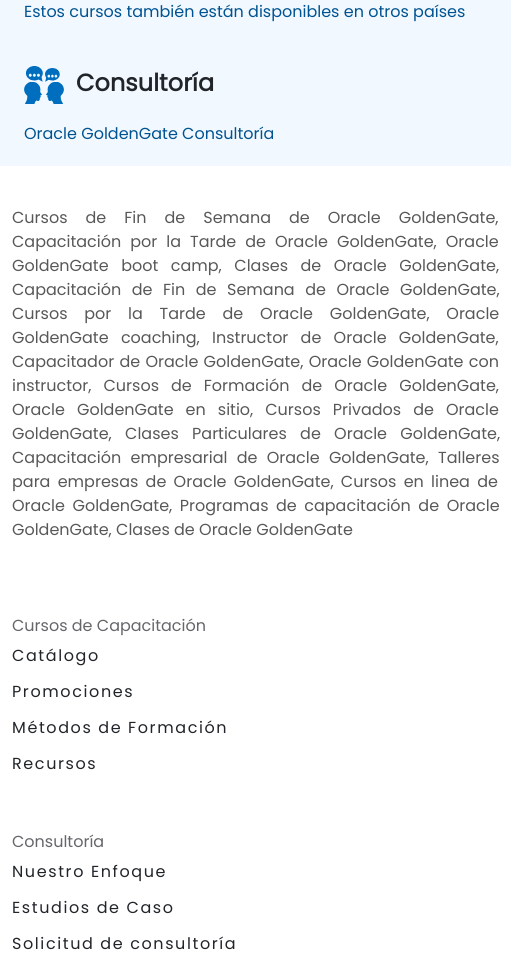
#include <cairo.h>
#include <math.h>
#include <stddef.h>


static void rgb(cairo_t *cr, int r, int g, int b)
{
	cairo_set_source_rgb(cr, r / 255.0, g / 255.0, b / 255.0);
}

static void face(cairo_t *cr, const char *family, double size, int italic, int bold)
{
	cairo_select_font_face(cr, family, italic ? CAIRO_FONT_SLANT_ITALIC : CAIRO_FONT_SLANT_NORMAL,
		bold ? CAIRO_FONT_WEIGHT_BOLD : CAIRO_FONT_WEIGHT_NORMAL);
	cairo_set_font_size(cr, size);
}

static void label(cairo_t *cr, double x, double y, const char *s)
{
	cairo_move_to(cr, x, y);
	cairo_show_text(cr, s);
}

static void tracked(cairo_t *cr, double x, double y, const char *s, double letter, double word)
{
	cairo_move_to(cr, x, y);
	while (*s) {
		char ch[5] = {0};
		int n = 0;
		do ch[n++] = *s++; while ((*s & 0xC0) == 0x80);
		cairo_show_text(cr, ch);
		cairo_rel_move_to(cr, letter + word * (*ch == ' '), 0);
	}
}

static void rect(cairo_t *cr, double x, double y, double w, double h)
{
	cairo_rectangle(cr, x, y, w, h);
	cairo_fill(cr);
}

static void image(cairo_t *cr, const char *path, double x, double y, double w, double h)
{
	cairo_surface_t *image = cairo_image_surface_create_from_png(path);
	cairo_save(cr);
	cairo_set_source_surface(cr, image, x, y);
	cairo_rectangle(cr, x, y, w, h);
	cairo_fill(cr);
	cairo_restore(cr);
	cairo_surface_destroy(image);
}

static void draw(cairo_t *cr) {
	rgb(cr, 255, 255, 255);
	cairo_paint(cr);
	rgb(cr, 241, 248, 255);
	rect(cr, 0, 0, 511, 166);
	face(cr, "Poppins", 16, 0, 0);
	rgb(cr, 0, 83, 144);
	label(cr, 24, 17, "Estos cursos también están disponibles en otros países");
	image(cr, "image0.png", 24, 66, 40, 38);
	face(cr, "Poppins", 24, 0, 1);
	rgb(cr, 33, 37, 41);
	label(cr, 76, 91, "Consultoría");
	face(cr, "Poppins", 16, 0, 0);
	rgb(cr, 0, 83, 144);
	label(cr, 24, 139, "Oracle GoldenGate Consultoría");
	rgb(cr, 88, 88, 88);
	tracked(cr, 12, 223, "Cursos de Fin de Semana de Oracle GoldenGate,", 0, 13.75);
	tracked(cr, 12, 247, "Capacitación por la Tarde de Oracle GoldenGate, Oracle", 0, 4.75);
	tracked(cr, 12, 271, "GoldenGate boot camp, Clases de Oracle GoldenGate,", 0, 8.25);
	tracked(cr, 12, 295, "Capacitación de Fin de Semana de Oracle GoldenGate,", 0, 6.25);
	tracked(cr, 12, 319, "Cursos por la Tarde de Oracle GoldenGate, Oracle", 0, 12.5);
	tracked(cr, 12, 343, "GoldenGate coaching, Instructor de Oracle GoldenGate,", 0, 8);
	tracked(cr, 12, 367, "Capacitador de Oracle GoldenGate, Oracle GoldenGate con", 0, 1);
	tracked(cr, 12, 391, "instructor, Cursos de Formación de Oracle GoldenGate,", 0, 7.75);
	tracked(cr, 12, 415, "Oracle GoldenGate en sitio, Cursos Privados de Oracle", 0, 7.75);
	tracked(cr, 12, 439, "GoldenGate, Clases Particulares de Oracle GoldenGate,", 0, 9);
	tracked(cr, 12, 463, "Capacitación empresarial de Oracle GoldenGate, Talleres", 0, 5);
	tracked(cr, 12, 487, "para empresas de Oracle GoldenGate, Cursos en linea de", 0, 3);
	tracked(cr, 12, 511, "Oracle GoldenGate, Programas de capacitación de Oracle", 0, 3.25);
	label(cr, 12, 535, "GoldenGate, Clases de Oracle GoldenGate");
	rgb(cr, 100, 102, 105);
	label(cr, 12, 631, "Cursos de Capacitación");
	rgb(cr, 33, 37, 41);
	tracked(cr, 12, 661, "Catálogo", 1.6, 0);
	tracked(cr, 12, 697, "Promociones", 1.6, 0);
	tracked(cr, 12, 733, "Métodos de Formación", 1.6, 0);
	tracked(cr, 12, 769, "Recursos", 1.6, 0);
	rgb(cr, 100, 102, 105);
	label(cr, 12, 847, "Consultoría");
	rgb(cr, 33, 37, 41);
	tracked(cr, 12, 877, "Nuestro Enfoque", 1.6, 0);
	tracked(cr, 12, 913, "Estudios de Caso", 1.6, 0);
	tracked(cr, 12, 949, "Solicitud de consultoría", 1.6, 0);
}

int main(void) {
	cairo_surface_t *surface = cairo_image_surface_create(CAIRO_FORMAT_RGB24, 511, 964);
	cairo_t *cr = cairo_create(surface);
	cairo_font_options_t *options = cairo_font_options_create();
	cairo_font_options_set_hint_metrics(options, CAIRO_HINT_METRICS_OFF);
	cairo_font_options_set_hint_style(options, CAIRO_HINT_STYLE_NONE);
	cairo_set_font_options(cr, options);
	cairo_set_miter_limit(cr, 4);
	draw(cr);
	cairo_surface_write_to_png(surface, "render.png");
	cairo_font_options_destroy(options);
	cairo_destroy(cr);
	cairo_surface_destroy(surface);
	return 0;
}
